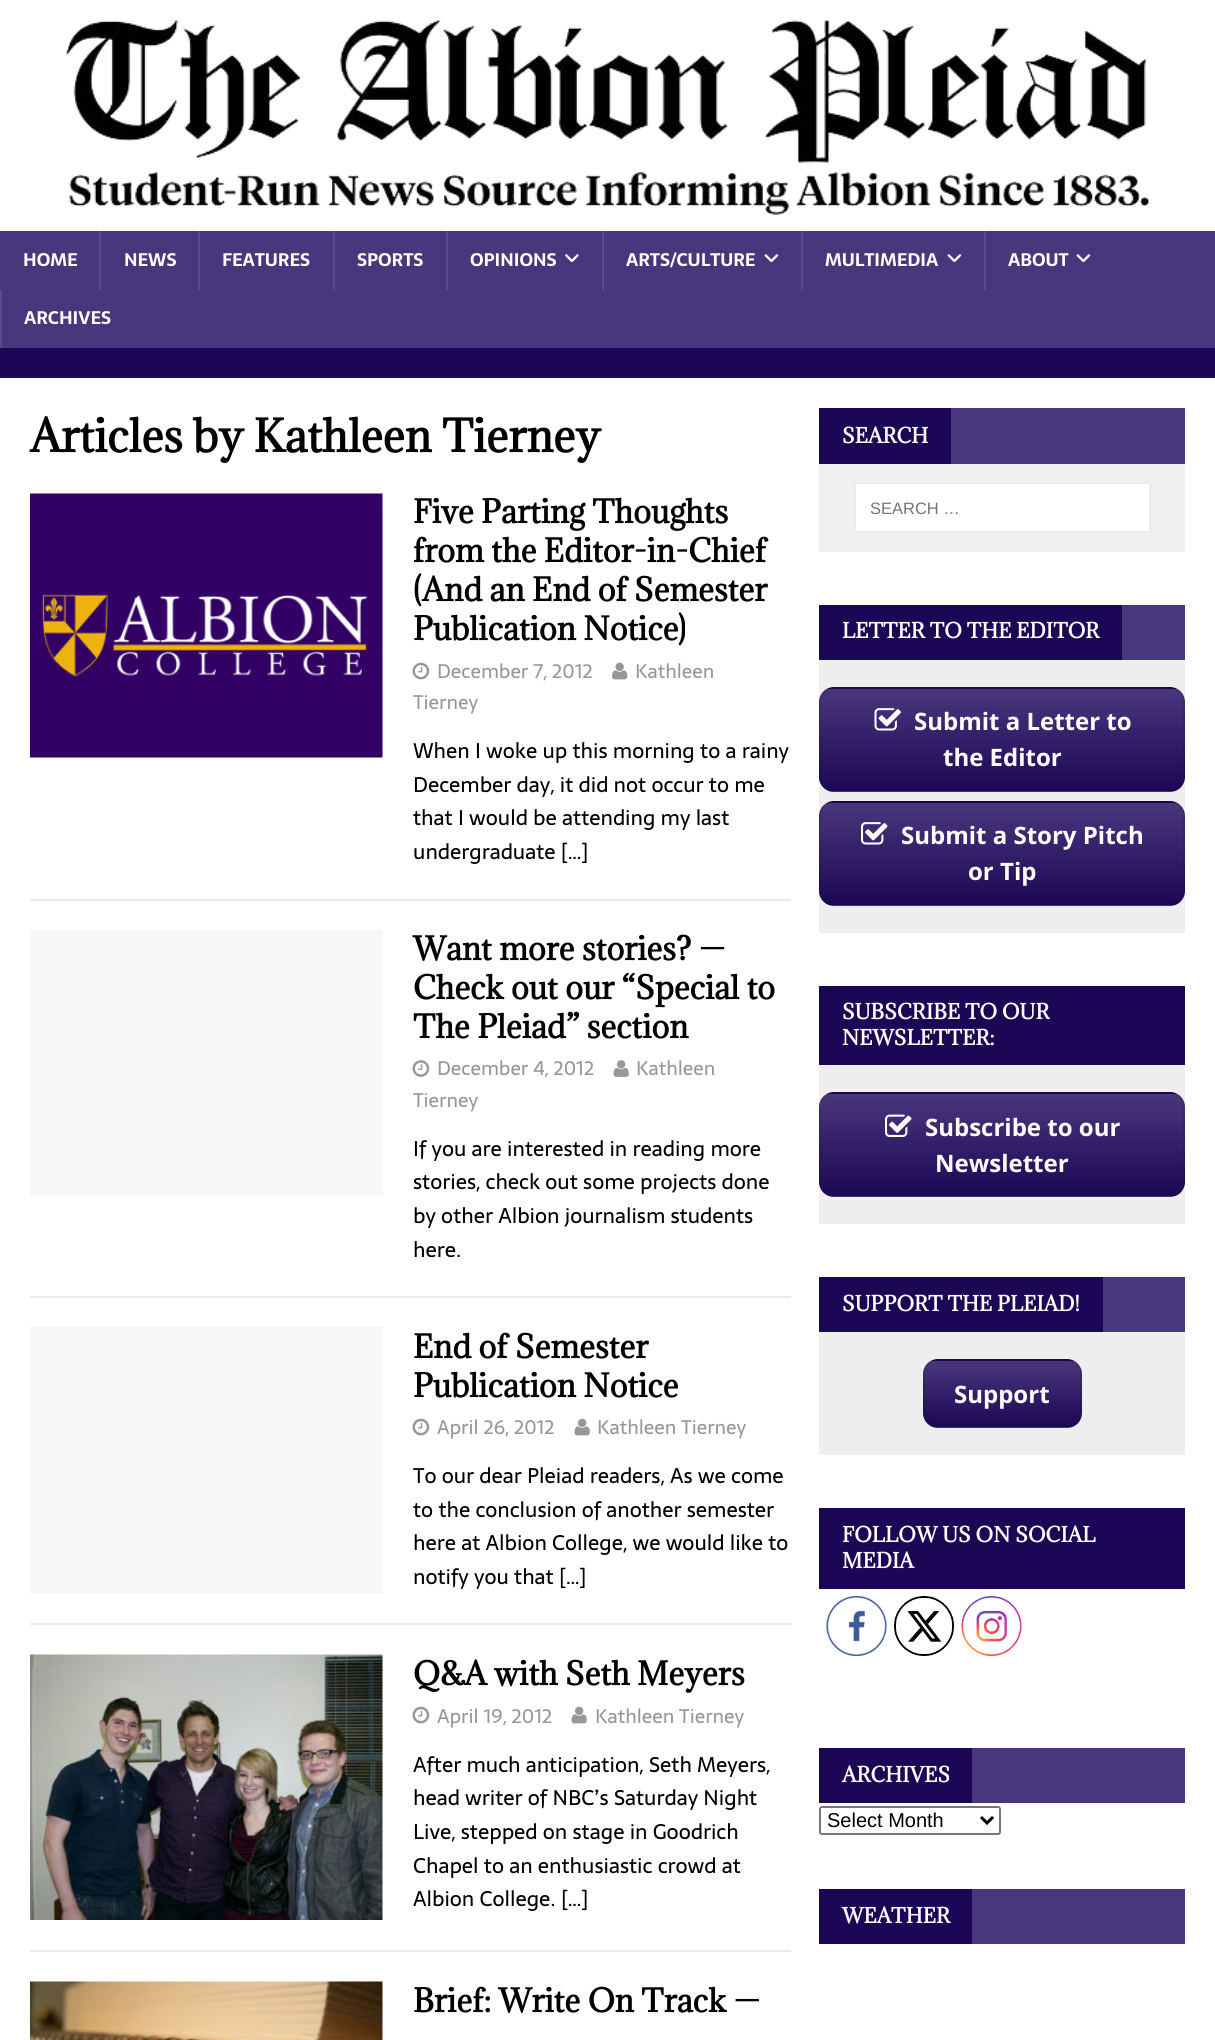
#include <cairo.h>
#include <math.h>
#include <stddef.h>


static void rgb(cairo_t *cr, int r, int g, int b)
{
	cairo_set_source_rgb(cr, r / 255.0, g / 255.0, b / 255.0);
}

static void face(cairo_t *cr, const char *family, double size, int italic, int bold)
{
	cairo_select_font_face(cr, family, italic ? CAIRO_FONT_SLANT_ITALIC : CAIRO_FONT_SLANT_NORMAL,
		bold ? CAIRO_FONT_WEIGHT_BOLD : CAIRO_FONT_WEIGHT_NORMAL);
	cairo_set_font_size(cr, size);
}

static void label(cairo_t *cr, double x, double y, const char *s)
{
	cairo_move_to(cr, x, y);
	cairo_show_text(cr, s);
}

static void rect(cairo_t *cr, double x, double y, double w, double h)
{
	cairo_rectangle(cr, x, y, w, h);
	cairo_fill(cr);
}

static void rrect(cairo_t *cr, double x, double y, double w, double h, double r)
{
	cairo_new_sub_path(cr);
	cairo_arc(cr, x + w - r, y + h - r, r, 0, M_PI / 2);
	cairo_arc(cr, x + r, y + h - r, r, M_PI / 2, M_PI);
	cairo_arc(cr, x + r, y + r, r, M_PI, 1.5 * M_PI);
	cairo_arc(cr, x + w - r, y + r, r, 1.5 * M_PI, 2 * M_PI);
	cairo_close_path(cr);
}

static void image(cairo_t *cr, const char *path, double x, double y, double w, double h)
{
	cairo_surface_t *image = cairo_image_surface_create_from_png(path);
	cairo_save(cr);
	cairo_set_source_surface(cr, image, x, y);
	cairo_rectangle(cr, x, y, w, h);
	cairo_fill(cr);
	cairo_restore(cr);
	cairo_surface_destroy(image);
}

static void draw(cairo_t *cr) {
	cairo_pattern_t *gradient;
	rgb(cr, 255, 255, 255);
	cairo_paint(cr);
	image(cr, "image0.png", 65, 20, 1085, 195);
	rgb(cr, 73, 55, 125);
	rect(cr, 0, 231, 1215, 117);
	rgb(cr, 28, 7, 86);
	rect(cr, 0, 348, 1215, 30);
	face(cr, "Sarala", 18, 0, 1);
	rgb(cr, 255, 255, 255);
	label(cr, 23, 266, "HOME");
	rgb(cr, 91, 75, 138);
	rect(cr, 99, 231, 2, 59);
	rgb(cr, 255, 255, 255);
	label(cr, 124, 266, "NEWS");
	rgb(cr, 91, 75, 138);
	rect(cr, 198, 231, 2, 59);
	rgb(cr, 255, 255, 255);
	label(cr, 222, 266, "FEATURES");
	rgb(cr, 91, 75, 138);
	rect(cr, 333, 231, 2, 59);
	rgb(cr, 255, 255, 255);
	label(cr, 357, 266, "SPORTS");
	rgb(cr, 91, 75, 138);
	rect(cr, 446, 231, 2, 59);
	rgb(cr, 255, 255, 255);
	label(cr, 470, 266, "OPINIONS");
	image(cr, "image1.png", 565, 254, 14, 9);
	rgb(cr, 91, 75, 138);
	rect(cr, 602, 231, 2, 59);
	rgb(cr, 255, 255, 255);
	label(cr, 626, 266, "ARTS/CULTURE");
	image(cr, "image2.png", 764, 254, 15, 9);
	rgb(cr, 91, 75, 138);
	rect(cr, 801, 231, 2, 59);
	rgb(cr, 255, 255, 255);
	label(cr, 825, 266, "MULTIMEDIA");
	image(cr, "image2.png", 947, 254, 15, 9);
	rgb(cr, 91, 75, 138);
	rect(cr, 984, 231, 2, 59);
	rgb(cr, 255, 255, 255);
	label(cr, 1008, 266, "ABOUT");
	image(cr, "image2.png", 1076, 254, 15, 9);
	rgb(cr, 91, 75, 138);
	rect(cr, 0, 290, 2, 58);
	rgb(cr, 255, 255, 255);
	label(cr, 24, 324, "ARCHIVES");
	face(cr, "Adamina", 42, 0, 1);
	rgb(cr, 0, 0, 0);
	label(cr, 30, 452, "Articles by Kathleen Tierney");
	rgb(cr, 235, 235, 235);
	rect(cr, 30, 899, 761, 2);
	image(cr, "image3.png", 30, 493, 353, 265);
	face(cr, "Adamina", 30, 0, 1);
	rgb(cr, 0, 0, 0);
	label(cr, 413, 523, "Five Parting Thoughts");
	label(cr, 413, 562, "from the Editor-in-Chief");
	label(cr, 413, 601, "(And an End of Semester");
	label(cr, 413, 640, "Publication Notice)");
	image(cr, "image4.png", 612, 662, 16, 18);
	face(cr, "Sarala", 19.5, 0, 0);
	rgb(cr, 151, 151, 151);
	label(cr, 635, 678, "Kathleen");
	label(cr, 413, 709, "Tierney");
	image(cr, "image5.png", 412, 662, 18, 18);
	label(cr, 437, 678, "December 7, 2012");
	face(cr, "Sarala", 21, 0, 0);
	rgb(cr, 0, 0, 0);
	label(cr, 413, 758, "When I woke up this morning to a rainy");
	label(cr, 413, 792, "December day, it did not occur to me");
	label(cr, 413, 825, "that I would be attending my last");
	label(cr, 413, 859, "undergraduate […]");
	rgb(cr, 235, 235, 235);
	rect(cr, 30, 1296, 761, 2);
	rgb(cr, 247, 247, 247);
	rect(cr, 30, 930, 353, 266);
	face(cr, "Adamina", 30, 0, 1);
	rgb(cr, 0, 0, 0);
	label(cr, 413, 960, "Want more stories? —");
	label(cr, 413, 999, "Check out our “Special to");
	label(cr, 413, 1038, "The Pleiad” section");
	image(cr, "image6.png", 613, 1060, 16, 17);
	face(cr, "Sarala", 19.5, 0, 0);
	rgb(cr, 151, 151, 151);
	label(cr, 636, 1075, "Kathleen");
	label(cr, 413, 1107, "Tierney");
	image(cr, "image7.png", 412, 1060, 18, 17);
	label(cr, 437, 1075, "December 4, 2012");
	face(cr, "Sarala", 21, 0, 0);
	rgb(cr, 0, 0, 0);
	label(cr, 413, 1156, "If you are interested in reading more");
	label(cr, 413, 1189, "stories, check out some projects done");
	label(cr, 413, 1223, "by other Albion journalism students");
	label(cr, 413, 1257, "here.");
	rgb(cr, 235, 235, 235);
	rect(cr, 30, 1623, 761, 2);
	rgb(cr, 247, 247, 247);
	rect(cr, 30, 1327, 353, 266);
	face(cr, "Adamina", 30, 0, 1);
	rgb(cr, 0, 0, 0);
	label(cr, 413, 1358, "End of Semester");
	label(cr, 413, 1397, "Publication Notice");
	image(cr, "image5.png", 412, 1418, 18, 18);
	face(cr, "Sarala", 19.5, 0, 0);
	rgb(cr, 151, 151, 151);
	label(cr, 437, 1434, "April 26, 2012");
	image(cr, "image8.png", 574, 1418, 16, 18);
	label(cr, 597, 1434, "Kathleen Tierney");
	face(cr, "Sarala", 21, 0, 0);
	rgb(cr, 0, 0, 0);
	label(cr, 413, 1483, "To our dear Pleiad readers, As we come");
	label(cr, 413, 1517, "to the conclusion of another semester");
	label(cr, 413, 1550, "here at Albion College, we would like to");
	label(cr, 413, 1584, "notify you that […]");
	rgb(cr, 235, 235, 235);
	rect(cr, 30, 1950, 761, 2);
	image(cr, "image9.png", 30, 1654, 353, 266);
	face(cr, "Adamina", 30, 0, 1);
	rgb(cr, 0, 0, 0);
	label(cr, 413, 1685, "Q&A with Seth Meyers");
	image(cr, "image5.png", 412, 1706, 18, 18);
	face(cr, "Sarala", 19.5, 0, 0);
	rgb(cr, 151, 151, 151);
	label(cr, 437, 1723, "April 19, 2012");
	image(cr, "image8.png", 571, 1706, 16, 18);
	label(cr, 595, 1723, "Kathleen Tierney");
	face(cr, "Sarala", 21, 0, 0);
	rgb(cr, 0, 0, 0);
	label(cr, 413, 1772, "After much anticipation, Seth Meyers,");
	label(cr, 413, 1805, "head writer of NBC’s Saturday Night");
	label(cr, 413, 1839, "Live, stepped on stage in Goodrich");
	label(cr, 413, 1873, "Chapel to an enthusiastic crowd at");
	label(cr, 413, 1906, "Albion College. […]");
	image(cr, "image10.png", 30, 1981, 353, 59);
	face(cr, "Adamina", 30, 0, 1);
	label(cr, 413, 2012, "Brief: Write On Track —");
	rgb(cr, 73, 55, 125);
	rect(cr, 951, 408, 234, 56);
	rgb(cr, 28, 7, 86);
	rect(cr, 819, 408, 132, 56);
	face(cr, "Adamina", 19.5, 0, 1);
	rgb(cr, 255, 255, 255);
	label(cr, 842, 443, "SEARCH");
	rgb(cr, 239, 239, 239);
	rect(cr, 819, 464, 366, 88);
	rgb(cr, 255, 255, 255);
	cairo_rectangle(cr, 855, 483, 295, 49);
	cairo_fill_preserve(cr);
	rgb(cr, 235, 235, 235);
	cairo_stroke(cr);
	face(cr, "Liberation Sans", 16.5, 0, 0);
	rgb(cr, 117, 117, 117);
	label(cr, 870, 514, "SEARCH …");
	rgb(cr, 73, 55, 125);
	rect(cr, 1122, 605, 63, 55);
	rgb(cr, 28, 7, 86);
	rect(cr, 819, 605, 303, 55);
	face(cr, "Adamina", 19.5, 0, 1);
	rgb(cr, 255, 255, 255);
	label(cr, 842, 638, "LETTER TO THE EDITOR");
	rgb(cr, 238, 238, 238);
	rect(cr, 819, 660, 366, 273);
	cairo_save(cr);
	rrect(cr, 819, 687, 366, 105, 15);
	cairo_clip(cr);
	gradient = cairo_pattern_create_linear(1002, 689, 1002, 587);
	cairo_pattern_add_color_stop_rgba(gradient, 0, 0.11, 0.027, 0.337, 1);
	cairo_pattern_add_color_stop_rgba(gradient, 1, 0.286, 0.216, 0.49, 1);
	cairo_set_source(cr, gradient);
	cairo_pattern_destroy(gradient);
	rect(cr, 819, 687, 366, 2);
	gradient = cairo_pattern_create_linear(1002, 791, 1002, 689);
	cairo_pattern_add_color_stop_rgba(gradient, 0, 0.11, 0.027, 0.337, 1);
	cairo_pattern_add_color_stop_rgba(gradient, 1, 0.286, 0.216, 0.49, 1);
	cairo_set_source(cr, gradient);
	cairo_pattern_destroy(gradient);
	rect(cr, 819, 689, 366, 102);
	gradient = cairo_pattern_create_linear(1002, 893, 1002, 791);
	cairo_pattern_add_color_stop_rgba(gradient, 0, 0.11, 0.027, 0.337, 1);
	cairo_pattern_add_color_stop_rgba(gradient, 1, 0.286, 0.216, 0.49, 1);
	cairo_set_source(cr, gradient);
	cairo_pattern_destroy(gradient);
	rect(cr, 829, 791, 346, 1);
	cairo_restore(cr);
	rrect(cr, 820, 688, 364, 103, 14);
	cairo_set_source_rgba(cr, 0, 0, 0, 0.1);
	cairo_stroke(cr);
	image(cr, "image11.png", 874, 708, 27, 23);
	face(cr, "Open Sans", 24, 0, 1);
	rgb(cr, 255, 255, 255);
	label(cr, 914, 730, "Submit a Letter to");
	label(cr, 943, 766, "the Editor");
	cairo_save(cr);
	rrect(cr, 819, 801, 366, 105, 15);
	cairo_clip(cr);
	gradient = cairo_pattern_create_linear(1002, 803, 1002, 701);
	cairo_pattern_add_color_stop_rgba(gradient, 0, 0.11, 0.027, 0.337, 1);
	cairo_pattern_add_color_stop_rgba(gradient, 1, 0.286, 0.216, 0.49, 1);
	cairo_set_source(cr, gradient);
	cairo_pattern_destroy(gradient);
	rect(cr, 819, 801, 366, 2);
	gradient = cairo_pattern_create_linear(1002, 905, 1002, 803);
	cairo_pattern_add_color_stop_rgba(gradient, 0, 0.11, 0.027, 0.337, 1);
	cairo_pattern_add_color_stop_rgba(gradient, 1, 0.286, 0.216, 0.49, 1);
	cairo_set_source(cr, gradient);
	cairo_pattern_destroy(gradient);
	rect(cr, 819, 803, 366, 102);
	gradient = cairo_pattern_create_linear(1002, 1007, 1002, 905);
	cairo_pattern_add_color_stop_rgba(gradient, 0, 0.11, 0.027, 0.337, 1);
	cairo_pattern_add_color_stop_rgba(gradient, 1, 0.286, 0.216, 0.49, 1);
	cairo_set_source(cr, gradient);
	cairo_pattern_destroy(gradient);
	rect(cr, 829, 905, 346, 1);
	cairo_restore(cr);
	rrect(cr, 820, 802, 364, 103, 14);
	cairo_set_source_rgba(cr, 0, 0, 0, 0.1);
	cairo_stroke(cr);
	image(cr, "image12.png", 861, 822, 27, 23);
	rgb(cr, 255, 255, 255);
	label(cr, 901, 844, "Submit a Story Pitch");
	label(cr, 968, 880, "or Tip");
	rgb(cr, 28, 7, 86);
	rect(cr, 819, 986, 366, 79);
	face(cr, "Adamina", 19.5, 0, 1);
	rgb(cr, 255, 255, 255);
	label(cr, 842, 1019, "SUBSCRIBE TO OUR");
	label(cr, 842, 1045, "NEWSLETTER:");
	rgb(cr, 238, 238, 238);
	rect(cr, 819, 1065, 366, 159);
	cairo_save(cr);
	rrect(cr, 819, 1092, 366, 105, 15);
	cairo_clip(cr);
	gradient = cairo_pattern_create_linear(1002, 1094, 1002, 992);
	cairo_pattern_add_color_stop_rgba(gradient, 0, 0.11, 0.027, 0.337, 1);
	cairo_pattern_add_color_stop_rgba(gradient, 1, 0.286, 0.216, 0.49, 1);
	cairo_set_source(cr, gradient);
	cairo_pattern_destroy(gradient);
	rect(cr, 819, 1092, 366, 2);
	gradient = cairo_pattern_create_linear(1002, 1196, 1002, 1094);
	cairo_pattern_add_color_stop_rgba(gradient, 0, 0.11, 0.027, 0.337, 1);
	cairo_pattern_add_color_stop_rgba(gradient, 1, 0.286, 0.216, 0.49, 1);
	cairo_set_source(cr, gradient);
	cairo_pattern_destroy(gradient);
	rect(cr, 819, 1094, 366, 102);
	gradient = cairo_pattern_create_linear(1002, 1298, 1002, 1196);
	cairo_pattern_add_color_stop_rgba(gradient, 0, 0.11, 0.027, 0.337, 1);
	cairo_pattern_add_color_stop_rgba(gradient, 1, 0.286, 0.216, 0.49, 1);
	cairo_set_source(cr, gradient);
	cairo_pattern_destroy(gradient);
	rect(cr, 829, 1196, 346, 1);
	cairo_restore(cr);
	rrect(cr, 820, 1093, 364, 103, 14);
	cairo_set_source_rgba(cr, 0, 0, 0, 0.1);
	cairo_stroke(cr);
	image(cr, "image13.png", 885, 1114, 27, 23);
	face(cr, "Open Sans", 24, 0, 1);
	rgb(cr, 255, 255, 255);
	label(cr, 925, 1136, "Subscribe to our");
	label(cr, 935, 1172, "Newsletter");
	rgb(cr, 73, 55, 125);
	rect(cr, 1103, 1277, 82, 55);
	rgb(cr, 28, 7, 86);
	rect(cr, 819, 1277, 284, 55);
	face(cr, "Adamina", 19.5, 0, 1);
	rgb(cr, 255, 255, 255);
	label(cr, 842, 1311, "SUPPORT THE PLEIAD!");
	rgb(cr, 238, 238, 238);
	rect(cr, 819, 1332, 366, 123);
	cairo_save(cr);
	rrect(cr, 923, 1359, 159, 69, 15);
	cairo_clip(cr);
	gradient = cairo_pattern_create_linear(1002, 1361, 1002, 1295);
	cairo_pattern_add_color_stop_rgba(gradient, 0, 0.11, 0.027, 0.337, 1);
	cairo_pattern_add_color_stop_rgba(gradient, 1, 0.286, 0.216, 0.49, 1);
	cairo_set_source(cr, gradient);
	cairo_pattern_destroy(gradient);
	rect(cr, 923, 1359, 159, 2);
	gradient = cairo_pattern_create_linear(1002, 1427, 1002, 1361);
	cairo_pattern_add_color_stop_rgba(gradient, 0, 0.11, 0.027, 0.337, 1);
	cairo_pattern_add_color_stop_rgba(gradient, 1, 0.286, 0.216, 0.49, 1);
	cairo_set_source(cr, gradient);
	cairo_pattern_destroy(gradient);
	rect(cr, 923, 1361, 159, 66);
	gradient = cairo_pattern_create_linear(1002, 1493, 1002, 1427);
	cairo_pattern_add_color_stop_rgba(gradient, 0, 0.11, 0.027, 0.337, 1);
	cairo_pattern_add_color_stop_rgba(gradient, 1, 0.286, 0.216, 0.49, 1);
	cairo_set_source(cr, gradient);
	cairo_pattern_destroy(gradient);
	rect(cr, 933, 1427, 139, 1);
	cairo_restore(cr);
	rrect(cr, 924, 1360, 157, 67, 14);
	cairo_set_source_rgba(cr, 0, 0, 0, 0.1);
	cairo_stroke(cr);
	face(cr, "Open Sans", 24, 0, 1);
	rgb(cr, 255, 255, 255);
	label(cr, 954, 1403, "Support");
	rgb(cr, 28, 7, 86);
	rect(cr, 819, 1508, 366, 81);
	face(cr, "Adamina", 19.5, 0, 1);
	rgb(cr, 255, 255, 255);
	label(cr, 842, 1542, "FOLLOW US ON SOCIAL");
	label(cr, 842, 1568, "MEDIA");
	image(cr, "image14.png", 826, 1596, 61, 60);
	image(cr, "image15.png", 894, 1596, 60, 60);
	image(cr, "image16.png", 961, 1596, 61, 60);
	rgb(cr, 73, 55, 125);
	rect(cr, 972, 1748, 213, 55);
	rgb(cr, 28, 7, 86);
	rect(cr, 819, 1748, 153, 55);
	rgb(cr, 255, 255, 255);
	label(cr, 842, 1782, "ARCHIVES");
	rrect(cr, 820, 1807, 180, 27, 2);
	rgb(cr, 118, 118, 118);
	cairo_stroke(cr);
	cairo_new_path(cr);
	cairo_move_to(cr, 981, 1817);
	cairo_line_to(cr, 987, 1823);
	cairo_line_to(cr, 993, 1817);
	rgb(cr, 0, 0, 0);
	cairo_set_line_width(cr, 3);
	cairo_stroke(cr);
	face(cr, "Liberation Sans", 20, 0, 0);
	label(cr, 827, 1827, "Select Month");
	rgb(cr, 73, 55, 125);
	rect(cr, 972, 1889, 213, 55);
	rgb(cr, 28, 7, 86);
	rect(cr, 819, 1889, 153, 55);
	face(cr, "Adamina", 19.5, 0, 1);
	rgb(cr, 255, 255, 255);
	label(cr, 842, 1923, "WEATHER");
}

int main(void) {
	cairo_surface_t *surface = cairo_image_surface_create(CAIRO_FORMAT_RGB24, 1215, 2040);
	cairo_t *cr = cairo_create(surface);
	cairo_font_options_t *options = cairo_font_options_create();
	cairo_font_options_set_hint_metrics(options, CAIRO_HINT_METRICS_OFF);
	cairo_font_options_set_hint_style(options, CAIRO_HINT_STYLE_NONE);
	cairo_set_font_options(cr, options);
	cairo_set_miter_limit(cr, 4);
	draw(cr);
	cairo_surface_write_to_png(surface, "render.png");
	cairo_font_options_destroy(options);
	cairo_destroy(cr);
	cairo_surface_destroy(surface);
	return 0;
}
